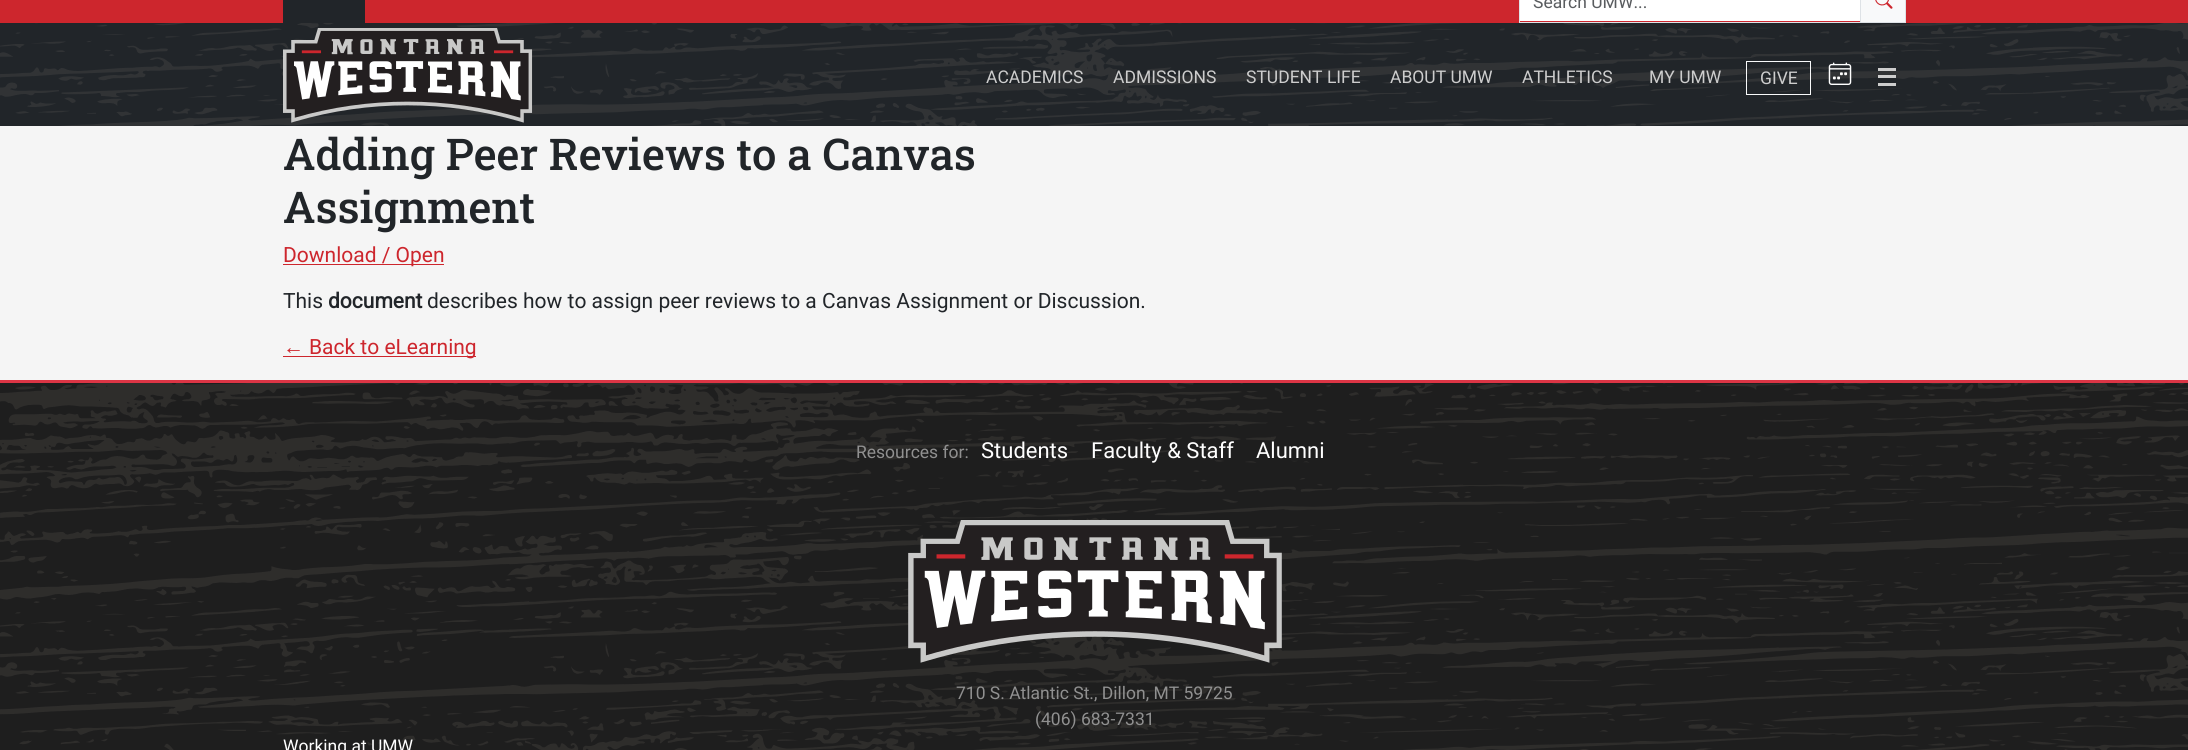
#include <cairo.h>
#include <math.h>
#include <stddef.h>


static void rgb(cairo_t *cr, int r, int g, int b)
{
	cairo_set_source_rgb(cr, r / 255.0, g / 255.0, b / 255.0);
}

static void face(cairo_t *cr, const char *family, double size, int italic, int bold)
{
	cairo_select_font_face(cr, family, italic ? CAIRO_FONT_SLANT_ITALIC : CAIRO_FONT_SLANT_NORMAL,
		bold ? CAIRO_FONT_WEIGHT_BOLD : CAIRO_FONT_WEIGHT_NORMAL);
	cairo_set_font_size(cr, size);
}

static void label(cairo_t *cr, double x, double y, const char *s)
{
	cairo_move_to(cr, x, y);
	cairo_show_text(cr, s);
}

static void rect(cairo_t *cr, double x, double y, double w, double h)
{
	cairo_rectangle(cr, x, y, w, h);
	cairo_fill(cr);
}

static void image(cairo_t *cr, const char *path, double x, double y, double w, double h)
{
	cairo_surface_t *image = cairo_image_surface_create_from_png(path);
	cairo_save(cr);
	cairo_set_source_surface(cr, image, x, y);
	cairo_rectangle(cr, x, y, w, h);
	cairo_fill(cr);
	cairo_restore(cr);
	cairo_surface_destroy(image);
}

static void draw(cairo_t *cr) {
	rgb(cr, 245, 245, 245);
	cairo_paint(cr);
	rgb(cr, 205, 38, 45);
	rect(cr, 0, 0, 2188, 23);
	rgb(cr, 33, 37, 41);
	rect(cr, 283, 0, 82, 23);
	rgb(cr, 255, 255, 255);
	rect(cr, 1520, 0, 340, 21);
	cairo_rectangle(cr, 1519.5, -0.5, 341, 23);
	rgb(cr, 222, 226, 230);
	cairo_set_line_width(cr, 1);
	cairo_stroke(cr);
	face(cr, "Roboto", 17.5, 0, 0);
	rgb(cr, 89, 92, 95);
	label(cr, 1533, 8, "Search UMW...");
	rgb(cr, 248, 249, 250);
	cairo_rectangle(cr, 1860.5, -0.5, 45, 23);
	cairo_fill_preserve(cr);
	rgb(cr, 222, 226, 230);
	cairo_stroke(cr);
	image(cr, "image0.png", 1875, 0, 18, 9);
	rgb(cr, 33, 37, 41);
	rect(cr, 0, 23, 2188, 103);
	image(cr, "image1.png", 0, 23, 2188, 103);
	image(cr, "image2.png", 283, 28, 250, 95);
	rgb(cr, 205, 205, 205);
	label(cr, 986, 83, "ACADEMICS");
	label(cr, 1113, 83, "ADMISSIONS");
	label(cr, 1246, 83, "STUDENT LIFE");
	label(cr, 1390, 83, "ABOUT UMW");
	label(cr, 1522, 83, "ATHLETICS");
	label(cr, 1649, 83, "MY UMW");
	cairo_rectangle(cr, 1746.5, 61.5, 64, 33);
	rgb(cr, 248, 249, 250);
	cairo_stroke(cr);
	rgb(cr, 205, 205, 205);
	label(cr, 1760, 84, "GIVE");
	image(cr, "image3.png", 1828, 62, 24, 23);
	rect(cr, 1878, 68, 18, 3);
	rect(cr, 1878, 75, 18, 3);
	rect(cr, 1878, 83, 18, 3);
	face(cr, "Roboto Slab Medium", 43.75, 0, 0);
	rgb(cr, 33, 37, 41);
	label(cr, 283, 170, "Adding Peer Reviews to a Canvas");
	label(cr, 283, 223, "Assignment");
	rgb(cr, 205, 38, 45);
	rect(cr, 283, 264, 161, 1);
	face(cr, "Roboto", 21, 0, 0);
	label(cr, 283, 262, "Download / Open");
	rgb(cr, 33, 37, 41);
	label(cr, 283, 308, "This");
	face(cr, "Roboto", 21, 0, 1);
	label(cr, 328, 308, "document");
	face(cr, "Roboto", 21, 0, 0);
	label(cr, 427, 308, "describes how to assign peer reviews to a Canvas Assignment or Discussion.");
	face(cr, "Liberation Sans", 21, 0, 0);
	rgb(cr, 205, 38, 45);
	label(cr, 283, 354, "←");
	rect(cr, 283, 356, 193, 1);
	face(cr, "Roboto", 21, 0, 0);
	label(cr, 309, 354, "Back to eLearning");
	rgb(cr, 30, 30, 30);
	rect(cr, 0, 383, 2188, 367);
	image(cr, "image4.png", 0, 383, 2188, 367);
	rgb(cr, 220, 53, 69);
	rect(cr, 0, 380, 2188, 3);
	face(cr, "Roboto", 17.5, 0, 0);
	rgb(cr, 144, 144, 144);
	label(cr, 856, 458, "Resources for:");
	face(cr, "Roboto", 22, 0, 0);
	rgb(cr, 255, 255, 255);
	label(cr, 981, 458, "Students");
	label(cr, 1091, 458, "Faculty & Staff");
	label(cr, 1256, 458, "Alumni");
	image(cr, "image5.png", 908, 520, 374, 143);
	face(cr, "Roboto", 17.5, 0, 0);
	rgb(cr, 144, 144, 144);
	label(cr, 956, 699, "710 S. Atlantic St., Dillon, MT 59725");
	label(cr, 1035, 725, "(406) 683-7331");
	rgb(cr, 255, 255, 255);
	label(cr, 283, 752, "Working at UMW");
}

int main(void) {
	cairo_surface_t *surface = cairo_image_surface_create(CAIRO_FORMAT_RGB24, 2188, 750);
	cairo_t *cr = cairo_create(surface);
	cairo_font_options_t *options = cairo_font_options_create();
	cairo_font_options_set_hint_metrics(options, CAIRO_HINT_METRICS_OFF);
	cairo_font_options_set_hint_style(options, CAIRO_HINT_STYLE_NONE);
	cairo_set_font_options(cr, options);
	cairo_set_miter_limit(cr, 4);
	draw(cr);
	cairo_surface_write_to_png(surface, "render.png");
	cairo_font_options_destroy(options);
	cairo_destroy(cr);
	cairo_surface_destroy(surface);
	return 0;
}
